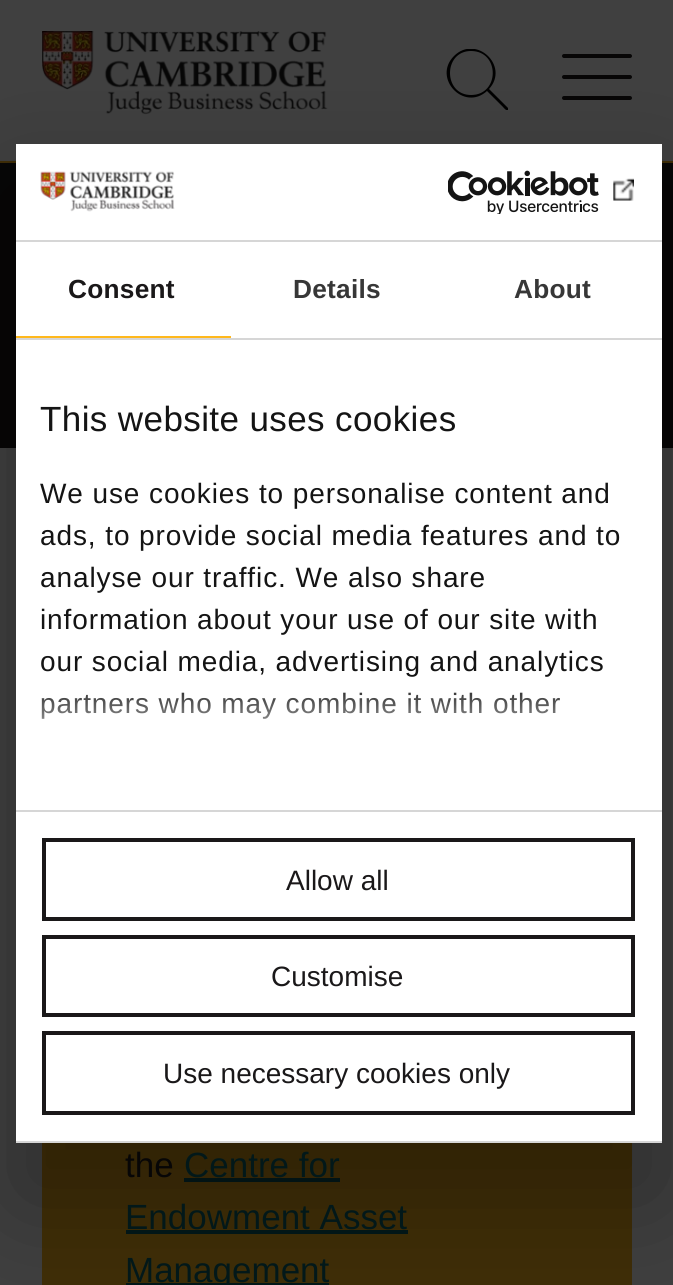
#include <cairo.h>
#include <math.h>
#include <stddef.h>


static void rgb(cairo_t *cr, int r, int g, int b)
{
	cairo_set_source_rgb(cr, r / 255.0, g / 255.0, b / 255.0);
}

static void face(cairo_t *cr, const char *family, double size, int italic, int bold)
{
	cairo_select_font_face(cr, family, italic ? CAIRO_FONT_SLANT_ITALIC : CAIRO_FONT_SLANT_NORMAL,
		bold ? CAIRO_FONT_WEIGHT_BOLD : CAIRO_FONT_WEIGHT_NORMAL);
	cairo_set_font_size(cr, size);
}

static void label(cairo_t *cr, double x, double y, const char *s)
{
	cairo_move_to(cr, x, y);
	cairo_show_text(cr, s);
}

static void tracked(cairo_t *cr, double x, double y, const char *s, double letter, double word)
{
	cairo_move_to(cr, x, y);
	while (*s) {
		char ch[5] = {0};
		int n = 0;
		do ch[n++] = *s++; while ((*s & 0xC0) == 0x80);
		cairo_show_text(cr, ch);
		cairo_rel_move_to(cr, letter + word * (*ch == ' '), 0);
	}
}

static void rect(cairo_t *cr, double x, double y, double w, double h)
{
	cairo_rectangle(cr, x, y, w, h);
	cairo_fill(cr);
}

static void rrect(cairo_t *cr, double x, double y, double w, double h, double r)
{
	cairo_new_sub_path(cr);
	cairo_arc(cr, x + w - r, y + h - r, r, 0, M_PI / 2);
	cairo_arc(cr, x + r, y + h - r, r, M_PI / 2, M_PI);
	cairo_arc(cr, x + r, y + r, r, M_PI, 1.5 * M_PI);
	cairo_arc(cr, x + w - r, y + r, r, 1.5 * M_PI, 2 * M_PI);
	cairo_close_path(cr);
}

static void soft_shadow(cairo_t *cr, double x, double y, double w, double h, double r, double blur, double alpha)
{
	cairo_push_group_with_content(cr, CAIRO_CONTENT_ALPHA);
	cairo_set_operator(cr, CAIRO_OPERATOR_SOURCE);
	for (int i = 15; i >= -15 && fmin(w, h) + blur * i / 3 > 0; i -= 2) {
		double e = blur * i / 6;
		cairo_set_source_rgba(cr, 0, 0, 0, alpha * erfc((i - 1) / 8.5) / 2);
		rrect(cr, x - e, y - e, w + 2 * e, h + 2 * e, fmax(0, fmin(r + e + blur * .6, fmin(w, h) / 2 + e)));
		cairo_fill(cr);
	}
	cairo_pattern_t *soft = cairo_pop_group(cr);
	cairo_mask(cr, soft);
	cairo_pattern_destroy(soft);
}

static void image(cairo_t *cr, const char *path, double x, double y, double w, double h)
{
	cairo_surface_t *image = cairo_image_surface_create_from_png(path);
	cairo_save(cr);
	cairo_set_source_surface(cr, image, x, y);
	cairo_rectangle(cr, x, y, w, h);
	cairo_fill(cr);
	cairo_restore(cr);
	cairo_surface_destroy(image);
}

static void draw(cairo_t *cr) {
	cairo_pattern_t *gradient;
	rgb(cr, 64, 64, 64);
	cairo_paint(cr);
	rgb(cr, 64, 46, 7);
	rect(cr, 0, 161, 673, 2);
	image(cr, "image3.png", 42, 31, 286, 84);
	rgb(cr, 7, 6, 6);
	rrect(cr, 562, 54, 70, 4, 2);
	cairo_fill(cr);
	rrect(cr, 562, 75, 70, 4, 2);
	cairo_fill(cr);
	rrect(cr, 562, 96, 70, 4, 2);
	cairo_fill(cr);
	cairo_save(cr);
	cairo_rectangle(cr, 443, 49, 68, 61);
	cairo_clip(cr);
	rgb(cr, 0, 0, 0);
	cairo_new_path(cr);
	cairo_move_to(cr, 508, 108);
	cairo_line_to(cr, 489, 89);
	cairo_curve_to(cr, 510, 66, 476, 34, 454, 56);
	cairo_curve_to(cr, 432, 78, 464, 112, 487, 91);
	cairo_line_to(cr, 503, 107);
	cairo_curve_to(cr, 504, 108, 506, 111, 508, 110);
	cairo_curve_to(cr, 508, 109, 508, 108, 508, 108);
	cairo_close_path(cr);
	cairo_move_to(cr, 471, 95);
	cairo_curve_to(cr, 443, 95, 443, 51, 471, 51);
	cairo_curve_to(cr, 500, 51, 500, 95, 471, 95);
	cairo_close_path(cr);
	cairo_fill(cr);
	cairo_restore(cr);
	rect(cr, 0, 163, 673, 285);
	rgb(cr, 64, 46, 7);
	rect(cr, 42, 1143, 590, 142);
	rgb(cr, 2, 24, 25);
	rect(cr, 184, 1178, 156, 4);
	rect(cr, 126, 1230, 282, 4);
	rect(cr, 126, 1283, 203, 2);
	rgb(cr, 0, 0, 0);
	soft_shadow(cr, 16, 200, 646, 999, 0, 59.5, 0.3);
	rgb(cr, 255, 255, 255);
	rect(cr, 16, 144, 646, 997);
	rgb(cr, 214, 214, 214);
	rect(cr, 16, 240, 646, 2);
	image(cr, "image0.png", 40, 171, 135, 41);
	image(cr, "image1.png", 448, 170, 151, 44);
	image(cr, "image2.png", 613, 178, 21, 23);
	rect(cr, 16, 338, 646, 2);
	rgb(cr, 255, 184, 28);
	rect(cr, 16, 336, 215, 2);
	face(cr, "Liberation Sans", 26.25, 0, 1);
	rgb(cr, 26, 24, 25);
	tracked(cr, 68, 298, "Consent", 0.25, 0);
	rgb(cr, 55, 55, 55);
	tracked(cr, 293, 298, "Details", 0.25, 0);
	tracked(cr, 514, 298, "About", 0.25, 0);
	rgb(cr, 214, 214, 214);
	rect(cr, 16, 810, 646, 2);
	face(cr, "Liberation Sans", 35, 0, 0);
	rgb(cr, 20, 20, 20);
	tracked(cr, 40, 431, "This website uses cookies", 0.4, 0);
	face(cr, "Liberation Sans", 28, 0, 0);
	tracked(cr, 40, 503, "We use cookies to personalise content and", 0.9, 0);
	tracked(cr, 40, 545, "ads, to provide social media features and to", 0.9, 0);
	tracked(cr, 40, 587, "analyse our traffic. We also share", 0.9, 0);
	tracked(cr, 40, 629, "information about your use of our site with", 0.9, 0);
	tracked(cr, 40, 671, "our social media, advertising and analytics", 0.9, 0);
	tracked(cr, 40, 713, "partners who may combine it with other", 0.9, 0);
	gradient = cairo_pattern_create_linear(326, 811, 326, 680);
	cairo_pattern_add_color_stop_rgba(gradient, 0, 1, 1, 1, 1);
	cairo_pattern_add_color_stop_rgba(gradient, 0.5, 1, 1, 1, 0.8);
	cairo_pattern_add_color_stop_rgba(gradient, 1, 1, 1, 1, 0);
	cairo_set_source(cr, gradient);
	cairo_pattern_destroy(gradient);
	rect(cr, 42, 692, 518, 27);
	rgb(cr, 214, 214, 214);
	rect(cr, 16, 1141, 646, 2);
	cairo_rectangle(cr, 44, 840, 589, 79);
	rgb(cr, 26, 24, 25);
	cairo_set_line_width(cr, 4);
	cairo_stroke(cr);
	label(cr, 286, 890, "Allow all");
	cairo_rectangle(cr, 44, 937, 589, 78);
	cairo_stroke(cr);
	label(cr, 271, 986, "Customise");
	cairo_rectangle(cr, 44, 1033, 589, 80);
	cairo_stroke(cr);
	label(cr, 163, 1083, "Use necessary cookies only");
	face(cr, "Liberation Sans", 35, 0, 0);
	rgb(cr, 7, 6, 6);
	label(cr, 125, 1177, "the");
	rgb(cr, 2, 24, 25);
	label(cr, 184, 1177, "Centre for");
	label(cr, 125, 1229, "Endowment Asset");
	label(cr, 125, 1282, "Management");
}

int main(void) {
	cairo_surface_t *surface = cairo_image_surface_create(CAIRO_FORMAT_RGB24, 673, 1285);
	cairo_t *cr = cairo_create(surface);
	cairo_font_options_t *options = cairo_font_options_create();
	cairo_font_options_set_hint_metrics(options, CAIRO_HINT_METRICS_OFF);
	cairo_font_options_set_hint_style(options, CAIRO_HINT_STYLE_NONE);
	cairo_set_font_options(cr, options);
	cairo_set_miter_limit(cr, 4);
	draw(cr);
	cairo_surface_write_to_png(surface, "render.png");
	cairo_font_options_destroy(options);
	cairo_destroy(cr);
	cairo_surface_destroy(surface);
	return 0;
}
